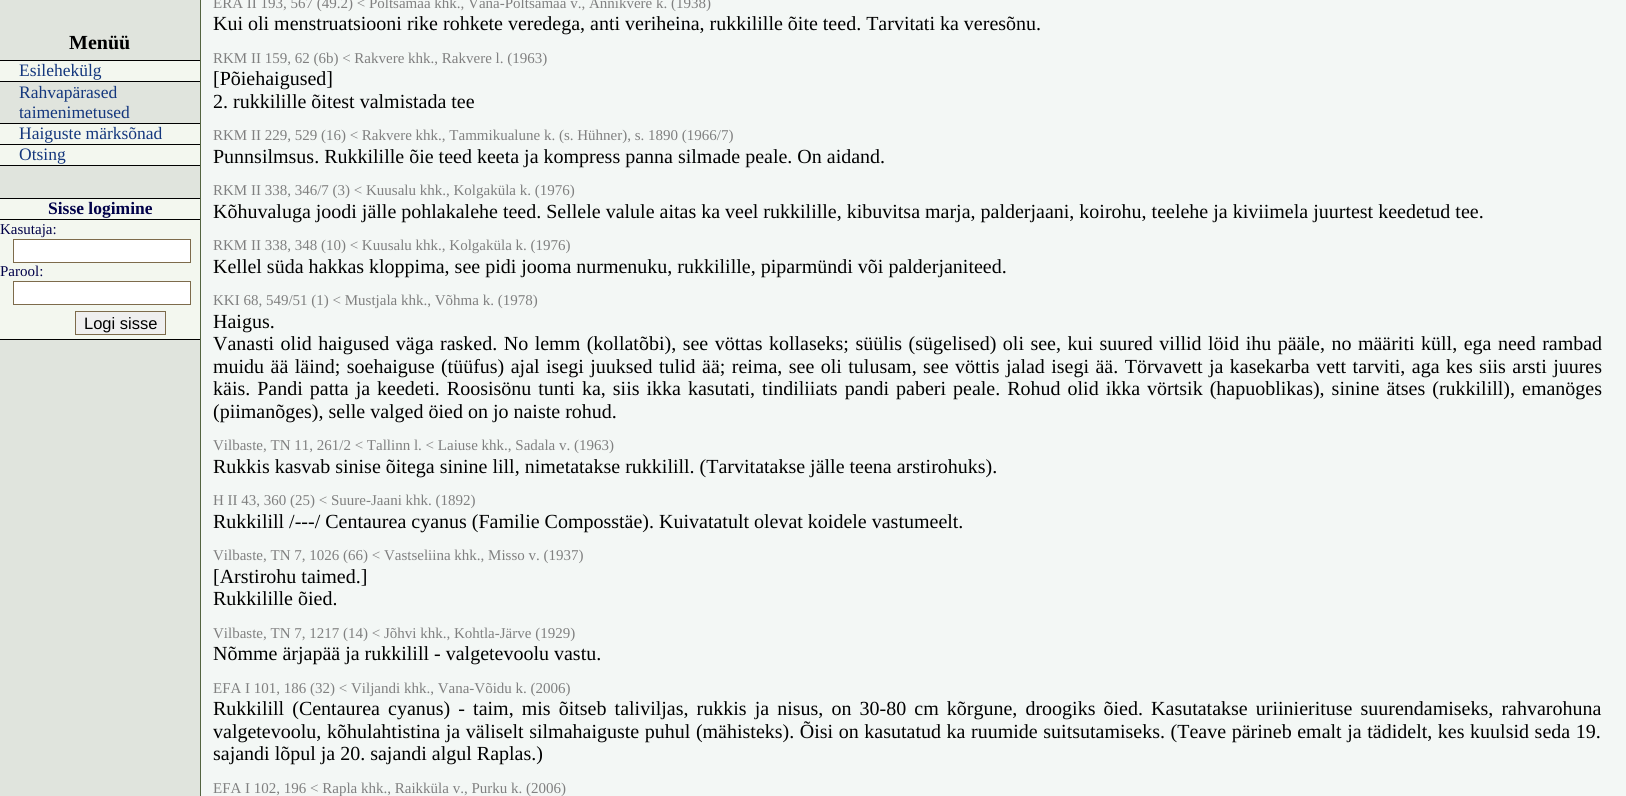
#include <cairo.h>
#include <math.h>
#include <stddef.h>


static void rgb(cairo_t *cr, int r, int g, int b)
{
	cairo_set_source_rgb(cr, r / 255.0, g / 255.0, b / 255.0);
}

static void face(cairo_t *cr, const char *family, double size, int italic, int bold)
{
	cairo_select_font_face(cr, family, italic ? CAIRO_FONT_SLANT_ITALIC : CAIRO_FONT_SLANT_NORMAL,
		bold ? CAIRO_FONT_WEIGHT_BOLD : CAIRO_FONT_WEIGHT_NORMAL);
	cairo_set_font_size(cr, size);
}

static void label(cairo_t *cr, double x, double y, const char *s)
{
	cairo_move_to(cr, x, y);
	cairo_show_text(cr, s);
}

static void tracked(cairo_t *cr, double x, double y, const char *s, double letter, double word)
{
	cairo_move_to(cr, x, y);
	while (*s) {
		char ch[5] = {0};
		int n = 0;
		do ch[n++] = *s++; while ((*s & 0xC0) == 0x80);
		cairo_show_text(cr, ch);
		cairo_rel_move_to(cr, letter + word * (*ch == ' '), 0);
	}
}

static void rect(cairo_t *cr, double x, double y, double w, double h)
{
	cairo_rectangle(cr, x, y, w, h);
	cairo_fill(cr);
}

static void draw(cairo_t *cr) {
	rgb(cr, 243, 247, 245);
	cairo_paint(cr);
	rgb(cr, 224, 228, 221);
	rect(cr, 0, 0, 200, 796);
	rgb(cr, 84, 100, 65);
	rect(cr, 200, 0, 1, 796);
	rgb(cr, 0, 0, 0);
	rect(cr, 0, 60, 200, 1);
	face(cr, "Liberation Serif", 20, 0, 1);
	label(cr, 69, 49, "Menüü");
	rect(cr, 0, 81, 200, 1);
	rgb(cr, 243, 247, 239);
	rect(cr, 0, 61, 200, 20);
	face(cr, "Liberation Serif", 17.5, 0, 0);
	rgb(cr, 20, 55, 125);
	label(cr, 19, 76, "Esilehekülg");
	rgb(cr, 0, 0, 0);
	rect(cr, 0, 123, 200, 1);
	rgb(cr, 20, 55, 125);
	label(cr, 19, 98, "Rahvapärased");
	label(cr, 19, 118, "taimenimetused");
	rgb(cr, 0, 0, 0);
	rect(cr, 0, 144, 200, 1);
	rgb(cr, 243, 247, 239);
	rect(cr, 0, 124, 200, 20);
	rgb(cr, 20, 55, 125);
	label(cr, 19, 139, "Haiguste märksõnad");
	rgb(cr, 0, 0, 0);
	rect(cr, 0, 165, 200, 1);
	rgb(cr, 243, 247, 239);
	rect(cr, 0, 145, 200, 20);
	rgb(cr, 20, 55, 125);
	label(cr, 19, 160, "Otsing");
	rgb(cr, 0, 0, 0);
	rect(cr, 0, 198, 200, 1);
	rect(cr, 0, 339, 200, 1);
	rgb(cr, 243, 247, 239);
	rect(cr, 0, 199, 200, 20);
	rgb(cr, 0, 0, 0);
	rect(cr, 0, 219, 200, 1);
	face(cr, "Liberation Serif", 17.5, 0, 1);
	rgb(cr, 0, 0, 72);
	label(cr, 48, 214, "Sisse logimine");
	rgb(cr, 243, 247, 239);
	rect(cr, 0, 220, 200, 119);
	face(cr, "Liberation Serif", 15, 0, 0);
	rgb(cr, 0, 0, 72);
	label(cr, 0, 234, "Kasutaja:");
	rgb(cr, 255, 255, 255);
	cairo_rectangle(cr, 13.5, 239.5, 177, 23);
	cairo_fill_preserve(cr);
	rgb(cr, 125, 107, 75);
	cairo_set_line_width(cr, 1);
	cairo_stroke(cr);
	rgb(cr, 0, 0, 72);
	label(cr, 0, 276, "Parool:");
	rgb(cr, 255, 255, 255);
	cairo_rectangle(cr, 13.5, 281.5, 177, 23);
	cairo_fill_preserve(cr);
	rgb(cr, 125, 107, 75);
	cairo_stroke(cr);
	rgb(cr, 239, 239, 239);
	cairo_rectangle(cr, 75.5, 311.5, 90, 23);
	cairo_fill_preserve(cr);
	rgb(cr, 125, 107, 75);
	cairo_stroke(cr);
	face(cr, "Liberation Sans", 16.5, 0, 0);
	rgb(cr, 0, 0, 0);
	label(cr, 84, 329, "Logi sisse");
	face(cr, "Liberation Serif", 15, 0, 0);
	rgb(cr, 128, 128, 128);
	label(cr, 213, 8, "ERA II 193, 567 (49.2) < Põltsamaa khk., Vana-Põltsamaa v., Annikvere k. (1938)");
	face(cr, "Liberation Serif", 20, 0, 0);
	rgb(cr, 0, 0, 0);
	label(cr, 213, 30, "Kui oli menstruatsiooni rike rohkete veredega, anti veriheina, rukkilille õite teed. Tarvitati ka veresõnu.");
	face(cr, "Liberation Serif", 15, 0, 0);
	rgb(cr, 128, 128, 128);
	label(cr, 213, 63, "RKM II 159, 62 (6b) < Rakvere khk., Rakvere l. (1963)");
	face(cr, "Liberation Serif", 20, 0, 0);
	rgb(cr, 0, 0, 0);
	label(cr, 213, 85, "[Põiehaigused]");
	label(cr, 213, 108, "2. rukkilille õitest valmistada tee");
	face(cr, "Liberation Serif", 15, 0, 0);
	rgb(cr, 128, 128, 128);
	label(cr, 213, 140, "RKM II 229, 529 (16) < Rakvere khk., Tammikualune k. (s. Hühner), s. 1890 (1966/7)");
	face(cr, "Liberation Serif", 20, 0, 0);
	rgb(cr, 0, 0, 0);
	label(cr, 213, 163, "Punnsilmsus. Rukkilille õie teed keeta ja kompress panna silmade peale. On aidand.");
	face(cr, "Liberation Serif", 15, 0, 0);
	rgb(cr, 128, 128, 128);
	label(cr, 213, 195, "RKM II 338, 346/7 (3) < Kuusalu khk., Kolgaküla k. (1976)");
	face(cr, "Liberation Serif", 20, 0, 0);
	rgb(cr, 0, 0, 0);
	label(cr, 213, 218, "Kõhuvaluga joodi jälle pohlakalehe teed. Sellele valule aitas ka veel rukkilille, kibuvitsa marja, palderjaani, koirohu, teelehe ja kiviimela juurtest keedetud tee.");
	face(cr, "Liberation Serif", 15, 0, 0);
	rgb(cr, 128, 128, 128);
	label(cr, 213, 250, "RKM II 338, 348 (10) < Kuusalu khk., Kolgaküla k. (1976)");
	face(cr, "Liberation Serif", 20, 0, 0);
	rgb(cr, 0, 0, 0);
	label(cr, 213, 273, "Kellel süda hakkas kloppima, see pidi jooma nurmenuku, rukkilille, piparmündi või palderjaniteed.");
	face(cr, "Liberation Serif", 15, 0, 0);
	rgb(cr, 128, 128, 128);
	label(cr, 213, 305, "KKI 68, 549/51 (1) < Mustjala khk., Võhma k. (1978)");
	face(cr, "Liberation Serif", 20, 0, 0);
	rgb(cr, 0, 0, 0);
	label(cr, 213, 328, "Haigus.");
	tracked(cr, 213, 350, "Vanasti olid haigused väga rasked. No lemm (kollatõbi), see vöttas kollaseks; süülis (sügelised) oli see, kui suured villid löid ihu pääle, no määriti küll, ega need rambad", 0, 1.5);
	tracked(cr, 213, 373, "muidu ää läind; soehaiguse (tüüfus) ajal isegi juuksed tulid ää; reima, see oli tulusam, see vöttis jalad isegi ää. Törvavett ja kasekarba vett tarviti, aga kes siis arsti juures", 0, 1.45);
	tracked(cr, 213, 395, "käis. Pandi patta ja keedeti. Roosisönu tunti ka, siis ikka kasutati, tindiliiats pandi paberi peale. Rohud olid ikka vörtsik (hapuoblikas), sinine ätses (rukkilill), emanöges", 0, 2);
	label(cr, 213, 418, "(piimanõges), selle valged öied on jo naiste rohud.");
	face(cr, "Liberation Serif", 15, 0, 0);
	rgb(cr, 128, 128, 128);
	label(cr, 213, 450, "Vilbaste, TN 11, 261/2 < Tallinn l. < Laiuse khk., Sadala v. (1963)");
	face(cr, "Liberation Serif", 20, 0, 0);
	rgb(cr, 0, 0, 0);
	label(cr, 213, 473, "Rukkis kasvab sinise õitega sinine lill, nimetatakse rukkilill. (Tarvitatakse jälle teena arstirohuks).");
	face(cr, "Liberation Serif", 15, 0, 0);
	rgb(cr, 128, 128, 128);
	label(cr, 213, 505, "H II 43, 360 (25) < Suure-Jaani khk. (1892)");
	face(cr, "Liberation Serif", 20, 0, 0);
	rgb(cr, 0, 0, 0);
	label(cr, 213, 528, "Rukkilill /---/ Centaurea cyanus (Familie Composstäe). Kuivatatult olevat koidele vastumeelt.");
	face(cr, "Liberation Serif", 15, 0, 0);
	rgb(cr, 128, 128, 128);
	label(cr, 213, 560, "Vilbaste, TN 7, 1026 (66) < Vastseliina khk., Misso v. (1937)");
	face(cr, "Liberation Serif", 20, 0, 0);
	rgb(cr, 0, 0, 0);
	label(cr, 213, 583, "[Arstirohu taimed.]");
	label(cr, 213, 605, "Rukkilille õied.");
	face(cr, "Liberation Serif", 15, 0, 0);
	rgb(cr, 128, 128, 128);
	label(cr, 213, 638, "Vilbaste, TN 7, 1217 (14) < Jõhvi khk., Kohtla-Järve (1929)");
	face(cr, "Liberation Serif", 20, 0, 0);
	rgb(cr, 0, 0, 0);
	label(cr, 213, 660, "Nõmme ärjapää ja rukkilill - valgetevoolu vastu.");
	face(cr, "Liberation Serif", 15, 0, 0);
	rgb(cr, 128, 128, 128);
	label(cr, 213, 693, "EFA I 101, 186 (32) < Viljandi khk., Vana-Võidu k. (2006)");
	face(cr, "Liberation Serif", 20, 0, 0);
	rgb(cr, 0, 0, 0);
	tracked(cr, 213, 715, "Rukkilill (Centaurea cyanus) - taim, mis õitseb taliviljas, rukkis ja nisus, on 30-80 cm kõrgune, droogiks õied. Kasutatakse uriinierituse suurendamiseks, rahvarohuna", 0, 3.1);
	tracked(cr, 213, 738, "valgetevoolu, kõhulahtistina ja väliselt silmahaiguste puhul (mähisteks). Õisi on kasutatud ka ruumide suitsutamiseks. (Teave pärineb emalt ja tädidelt, kes kuulsid seda 19.", 0, 0.6);
	label(cr, 213, 760, "sajandi lõpul ja 20. sajandi algul Raplas.)");
	face(cr, "Liberation Serif", 15, 0, 0);
	rgb(cr, 128, 128, 128);
	label(cr, 213, 793, "EFA I 102, 196 < Rapla khk., Raikküla v., Purku k. (2006)");
}

int main(void) {
	cairo_surface_t *surface = cairo_image_surface_create(CAIRO_FORMAT_RGB24, 1626, 796);
	cairo_t *cr = cairo_create(surface);
	cairo_font_options_t *options = cairo_font_options_create();
	cairo_font_options_set_hint_metrics(options, CAIRO_HINT_METRICS_OFF);
	cairo_font_options_set_hint_style(options, CAIRO_HINT_STYLE_NONE);
	cairo_set_font_options(cr, options);
	cairo_set_miter_limit(cr, 4);
	draw(cr);
	cairo_surface_write_to_png(surface, "render.png");
	cairo_font_options_destroy(options);
	cairo_destroy(cr);
	cairo_surface_destroy(surface);
	return 0;
}
